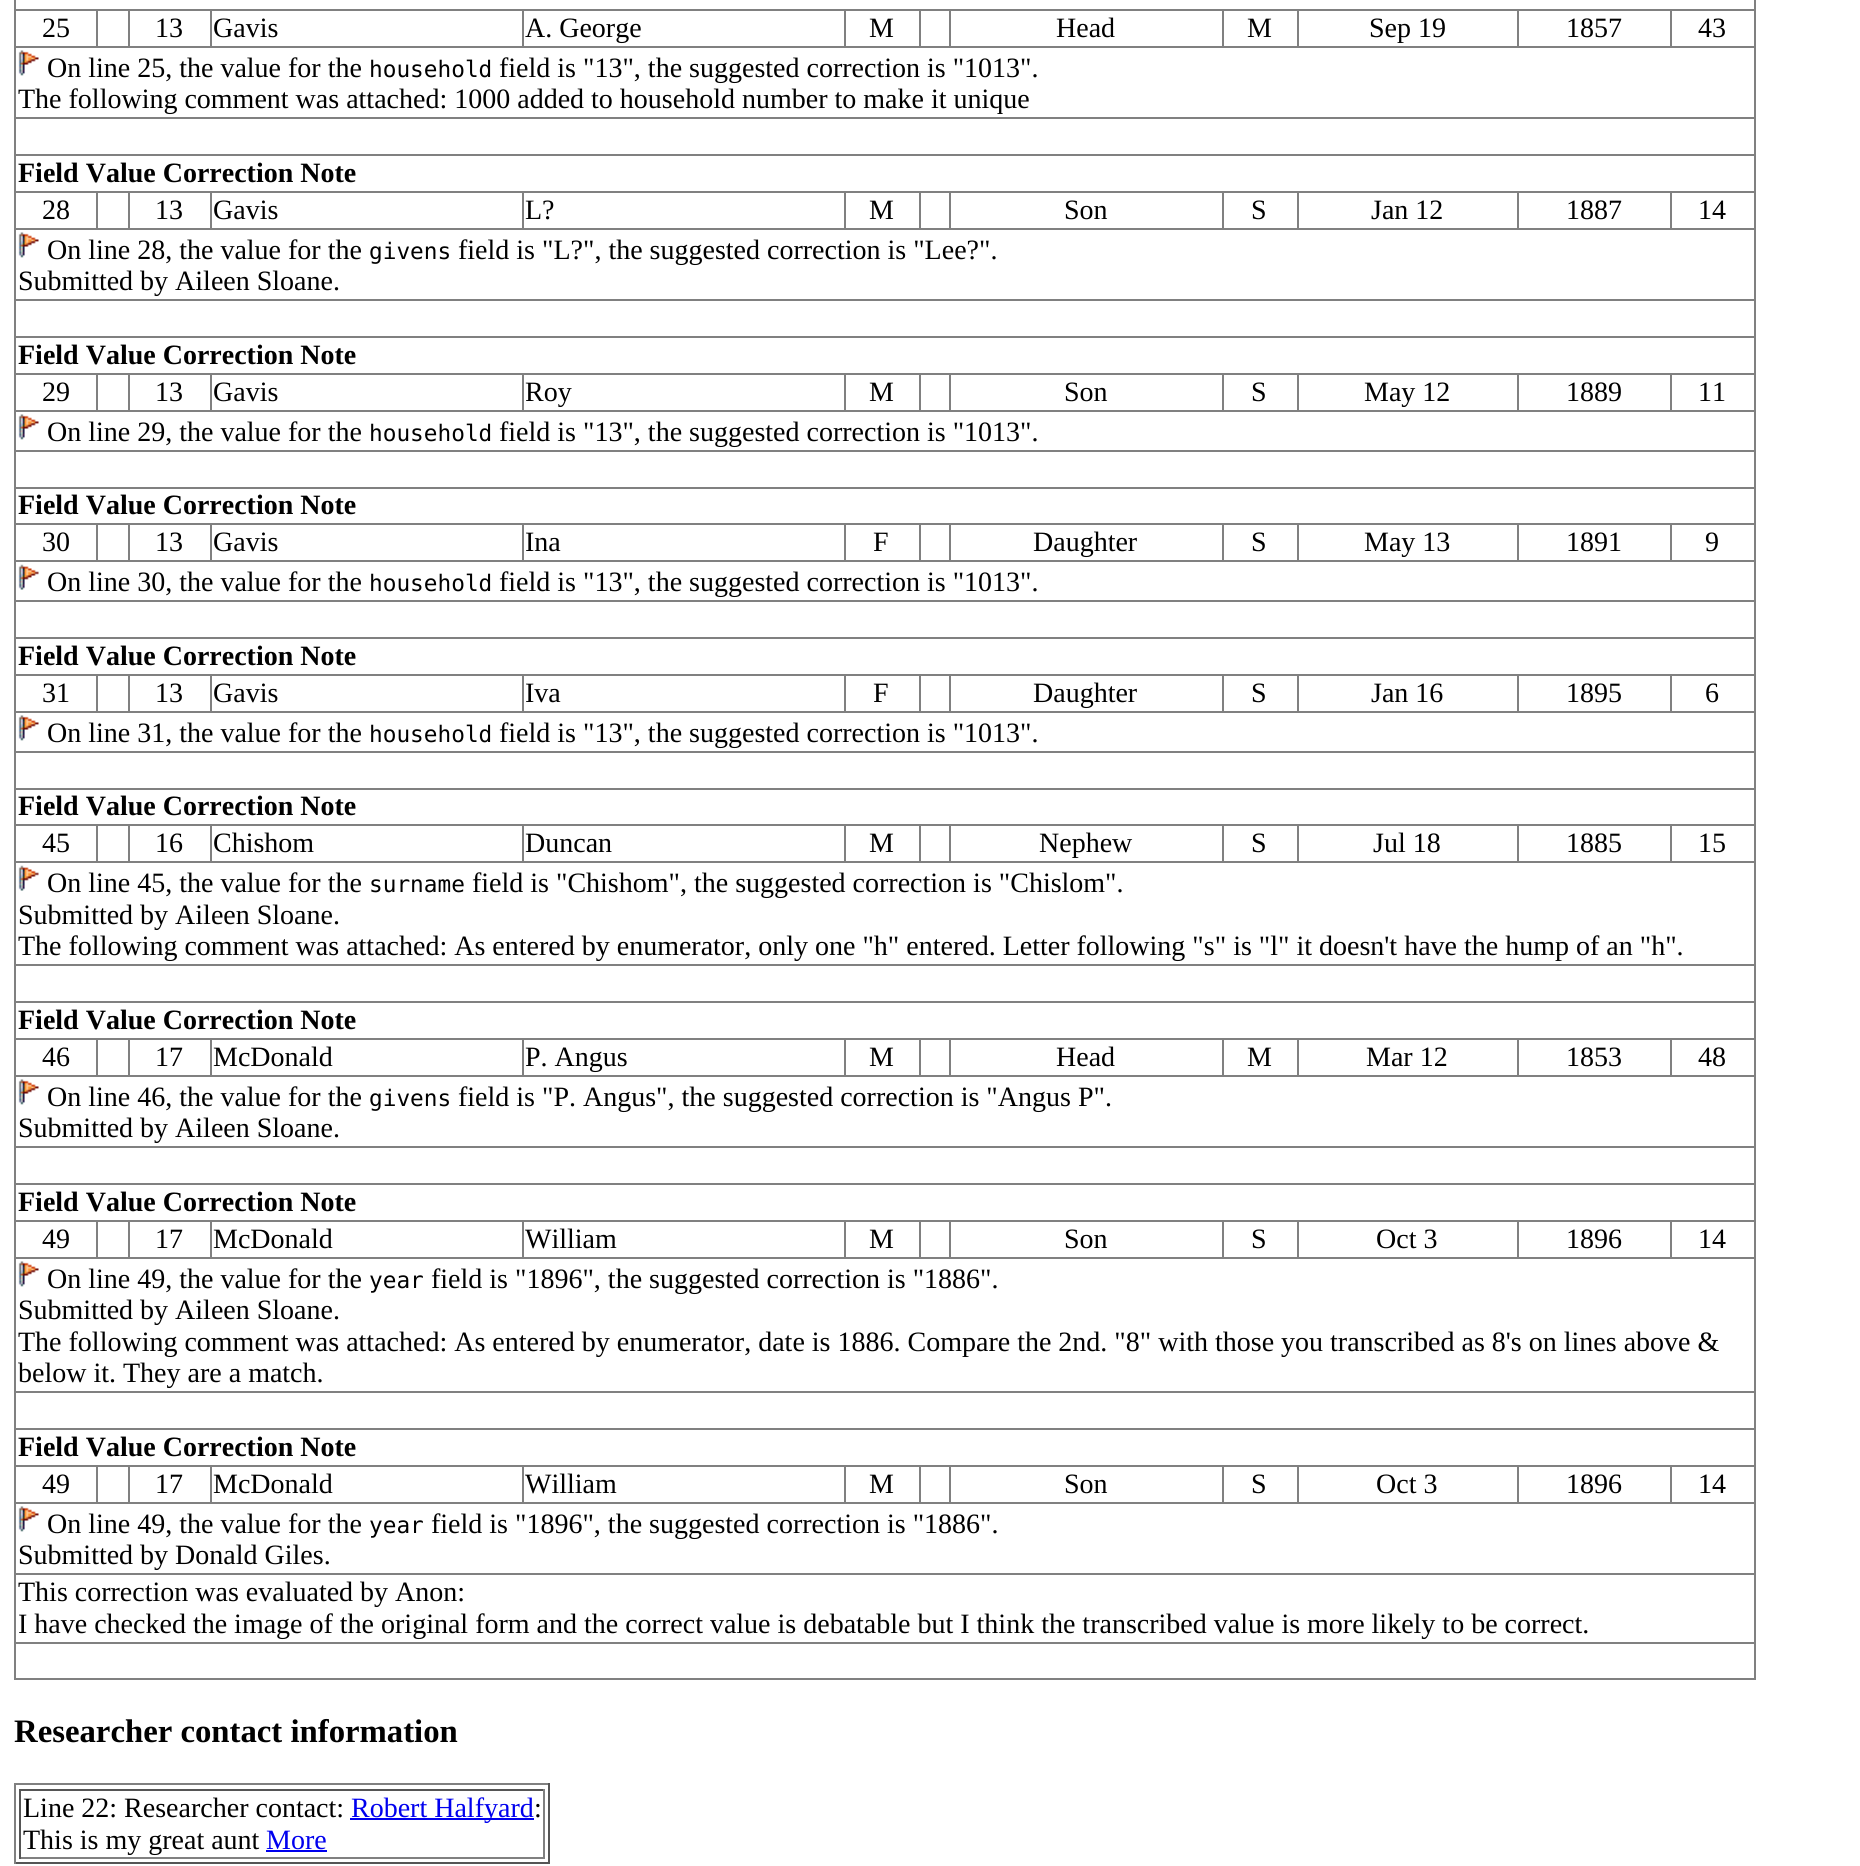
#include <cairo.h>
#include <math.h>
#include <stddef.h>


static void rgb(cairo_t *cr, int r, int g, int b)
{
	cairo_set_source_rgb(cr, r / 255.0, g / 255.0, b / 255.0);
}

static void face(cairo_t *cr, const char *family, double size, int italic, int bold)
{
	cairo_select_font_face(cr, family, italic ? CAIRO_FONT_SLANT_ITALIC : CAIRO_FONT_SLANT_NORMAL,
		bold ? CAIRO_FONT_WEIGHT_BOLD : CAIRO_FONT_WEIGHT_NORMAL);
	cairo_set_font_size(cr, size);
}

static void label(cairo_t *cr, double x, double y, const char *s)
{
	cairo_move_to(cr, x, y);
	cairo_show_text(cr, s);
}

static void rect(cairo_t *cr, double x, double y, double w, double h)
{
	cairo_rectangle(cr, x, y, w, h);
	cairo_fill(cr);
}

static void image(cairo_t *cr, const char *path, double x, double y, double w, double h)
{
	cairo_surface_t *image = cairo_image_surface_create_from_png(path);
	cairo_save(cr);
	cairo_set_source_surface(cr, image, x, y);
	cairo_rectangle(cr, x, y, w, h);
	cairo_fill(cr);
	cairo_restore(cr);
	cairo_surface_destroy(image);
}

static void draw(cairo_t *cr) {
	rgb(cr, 255, 255, 255);
	cairo_paint(cr);
	rgb(cr, 128, 128, 128);
	rect(cr, 1754, 0, 2, 1680);
	rect(cr, 14, 1678, 1741, 2);
	rect(cr, 14, 0, 2, 1680);
	rect(cr, 1670, 9, 85, 2);
	rect(cr, 14, 46, 1741, 2);
	rect(cr, 1670, 9, 2, 38);
	rect(cr, 1517, 9, 154, 2);
	rect(cr, 1517, 9, 2, 38);
	rect(cr, 1297, 9, 222, 2);
	rect(cr, 1297, 9, 2, 38);
	rect(cr, 1222, 9, 77, 2);
	rect(cr, 1222, 9, 2, 38);
	rect(cr, 949, 9, 274, 2);
	rect(cr, 949, 9, 2, 38);
	rect(cr, 919, 9, 31, 2);
	rect(cr, 919, 9, 2, 38);
	rect(cr, 844, 9, 77, 2);
	rect(cr, 844, 9, 2, 38);
	rect(cr, 522, 9, 323, 2);
	rect(cr, 522, 9, 2, 38);
	rect(cr, 210, 9, 313, 2);
	rect(cr, 210, 9, 2, 38);
	rect(cr, 128, 9, 84, 2);
	rect(cr, 128, 9, 2, 38);
	rect(cr, 96, 9, 34, 2);
	rect(cr, 96, 9, 2, 38);
	rect(cr, 14, 9, 84, 2);
	face(cr, "Liberation Serif", 28, 0, 0);
	rgb(cr, 0, 0, 0);
	label(cr, 42, 37, "25");
	label(cr, 155, 37, "13");
	label(cr, 213, 37, "Gavis");
	label(cr, 525, 37, "A. George");
	label(cr, 869, 37, "M");
	label(cr, 1056, 37, "Head");
	label(cr, 1247, 37, "M");
	label(cr, 1369, 37, "Sep 19");
	label(cr, 1566, 37, "1857");
	label(cr, 1698, 37, "43");
	image(cr, "image0.png", 18, 50, 21, 26);
	label(cr, 47, 77, "On line 25, the value for the");
	face(cr, "DejaVu Sans Mono", 22.75, 0, 0);
	label(cr, 369, 77, "household");
	face(cr, "Liberation Serif", 28, 0, 0);
	label(cr, 499, 77, "field is \"13\", the suggested correction is \"1013\".");
	label(cr, 18, 108, "The following comment was attached: 1000 added to household number to make it unique");
	rgb(cr, 128, 128, 128);
	rect(cr, 14, 117, 1741, 2);
	rect(cr, 14, 154, 1741, 2);
	face(cr, "Liberation Serif", 28, 0, 1);
	rgb(cr, 0, 0, 0);
	label(cr, 18, 182, "Field Value Correction Note");
	rgb(cr, 128, 128, 128);
	rect(cr, 1670, 191, 85, 2);
	rect(cr, 14, 228, 1741, 2);
	rect(cr, 1670, 191, 2, 38);
	rect(cr, 1517, 191, 154, 2);
	rect(cr, 1517, 191, 2, 38);
	rect(cr, 1297, 191, 222, 2);
	rect(cr, 1297, 191, 2, 38);
	rect(cr, 1222, 191, 77, 2);
	rect(cr, 1222, 191, 2, 38);
	rect(cr, 949, 191, 274, 2);
	rect(cr, 949, 191, 2, 38);
	rect(cr, 919, 191, 31, 2);
	rect(cr, 919, 191, 2, 38);
	rect(cr, 844, 191, 77, 2);
	rect(cr, 844, 191, 2, 38);
	rect(cr, 522, 191, 323, 2);
	rect(cr, 522, 191, 2, 38);
	rect(cr, 210, 191, 313, 2);
	rect(cr, 210, 191, 2, 38);
	rect(cr, 128, 191, 84, 2);
	rect(cr, 128, 191, 2, 38);
	rect(cr, 96, 191, 34, 2);
	rect(cr, 96, 191, 2, 38);
	rect(cr, 14, 191, 84, 2);
	face(cr, "Liberation Serif", 28, 0, 0);
	rgb(cr, 0, 0, 0);
	label(cr, 42, 219, "28");
	label(cr, 155, 219, "13");
	label(cr, 213, 219, "Gavis");
	label(cr, 525, 219, "L?");
	label(cr, 869, 219, "M");
	label(cr, 1064, 219, "Son");
	label(cr, 1251, 219, "S");
	label(cr, 1371, 219, "Jan 12");
	label(cr, 1566, 219, "1887");
	label(cr, 1698, 219, "14");
	image(cr, "image0.png", 18, 232, 21, 26);
	label(cr, 47, 259, "On line 28, the value for the");
	face(cr, "DejaVu Sans Mono", 22.75, 0, 0);
	label(cr, 369, 259, "givens");
	face(cr, "Liberation Serif", 28, 0, 0);
	label(cr, 458, 259, "field is \"L?\", the suggested correction is \"Lee?\".");
	label(cr, 18, 290, "Submitted by Aileen Sloane.");
	rgb(cr, 128, 128, 128);
	rect(cr, 14, 299, 1741, 2);
	rect(cr, 14, 336, 1741, 2);
	face(cr, "Liberation Serif", 28, 0, 1);
	rgb(cr, 0, 0, 0);
	label(cr, 18, 364, "Field Value Correction Note");
	rgb(cr, 128, 128, 128);
	rect(cr, 1670, 373, 85, 2);
	rect(cr, 14, 410, 1741, 2);
	rect(cr, 1670, 373, 2, 38);
	rect(cr, 1517, 373, 154, 2);
	rect(cr, 1517, 373, 2, 38);
	rect(cr, 1297, 373, 222, 2);
	rect(cr, 1297, 373, 2, 38);
	rect(cr, 1222, 373, 77, 2);
	rect(cr, 1222, 373, 2, 38);
	rect(cr, 949, 373, 274, 2);
	rect(cr, 949, 373, 2, 38);
	rect(cr, 919, 373, 31, 2);
	rect(cr, 919, 373, 2, 38);
	rect(cr, 844, 373, 77, 2);
	rect(cr, 844, 373, 2, 38);
	rect(cr, 522, 373, 323, 2);
	rect(cr, 522, 373, 2, 38);
	rect(cr, 210, 373, 313, 2);
	rect(cr, 210, 373, 2, 38);
	rect(cr, 128, 373, 84, 2);
	rect(cr, 128, 373, 2, 38);
	rect(cr, 96, 373, 34, 2);
	rect(cr, 96, 373, 2, 38);
	rect(cr, 14, 373, 84, 2);
	face(cr, "Liberation Serif", 28, 0, 0);
	rgb(cr, 0, 0, 0);
	label(cr, 42, 401, "29");
	label(cr, 155, 401, "13");
	label(cr, 213, 401, "Gavis");
	label(cr, 525, 401, "Roy");
	label(cr, 869, 401, "M");
	label(cr, 1064, 401, "Son");
	label(cr, 1251, 401, "S");
	label(cr, 1364, 401, "May 12");
	label(cr, 1566, 401, "1889");
	label(cr, 1698, 401, "11");
	image(cr, "image0.png", 18, 414, 21, 26);
	label(cr, 47, 441, "On line 29, the value for the");
	face(cr, "DejaVu Sans Mono", 22.75, 0, 0);
	label(cr, 369, 441, "household");
	face(cr, "Liberation Serif", 28, 0, 0);
	label(cr, 499, 441, "field is \"13\", the suggested correction is \"1013\".");
	rgb(cr, 128, 128, 128);
	rect(cr, 14, 450, 1741, 2);
	rect(cr, 14, 487, 1741, 2);
	face(cr, "Liberation Serif", 28, 0, 1);
	rgb(cr, 0, 0, 0);
	label(cr, 18, 514, "Field Value Correction Note");
	rgb(cr, 128, 128, 128);
	rect(cr, 1670, 523, 85, 2);
	rect(cr, 14, 560, 1741, 2);
	rect(cr, 1670, 523, 2, 39);
	rect(cr, 1517, 523, 154, 2);
	rect(cr, 1517, 523, 2, 39);
	rect(cr, 1297, 523, 222, 2);
	rect(cr, 1297, 523, 2, 39);
	rect(cr, 1222, 523, 77, 2);
	rect(cr, 1222, 523, 2, 39);
	rect(cr, 949, 523, 274, 2);
	rect(cr, 949, 523, 2, 39);
	rect(cr, 919, 523, 31, 2);
	rect(cr, 919, 523, 2, 39);
	rect(cr, 844, 523, 77, 2);
	rect(cr, 844, 523, 2, 39);
	rect(cr, 522, 523, 323, 2);
	rect(cr, 522, 523, 2, 39);
	rect(cr, 210, 523, 313, 2);
	rect(cr, 210, 523, 2, 39);
	rect(cr, 128, 523, 84, 2);
	rect(cr, 128, 523, 2, 39);
	rect(cr, 96, 523, 34, 2);
	rect(cr, 96, 523, 2, 39);
	rect(cr, 14, 523, 84, 2);
	face(cr, "Liberation Serif", 28, 0, 0);
	rgb(cr, 0, 0, 0);
	label(cr, 42, 551, "30");
	label(cr, 155, 551, "13");
	label(cr, 213, 551, "Gavis");
	label(cr, 525, 551, "Ina");
	label(cr, 873, 551, "F");
	label(cr, 1033, 551, "Daughter");
	label(cr, 1251, 551, "S");
	label(cr, 1364, 551, "May 13");
	label(cr, 1566, 551, "1891");
	label(cr, 1705, 551, "9");
	image(cr, "image1.png", 18, 564, 21, 26);
	label(cr, 47, 591, "On line 30, the value for the");
	face(cr, "DejaVu Sans Mono", 22.75, 0, 0);
	label(cr, 369, 591, "household");
	face(cr, "Liberation Serif", 28, 0, 0);
	label(cr, 499, 591, "field is \"13\", the suggested correction is \"1013\".");
	rgb(cr, 128, 128, 128);
	rect(cr, 14, 600, 1741, 2);
	rect(cr, 14, 637, 1741, 2);
	face(cr, "Liberation Serif", 28, 0, 1);
	rgb(cr, 0, 0, 0);
	label(cr, 18, 665, "Field Value Correction Note");
	rgb(cr, 128, 128, 128);
	rect(cr, 1670, 674, 85, 2);
	rect(cr, 14, 711, 1741, 2);
	rect(cr, 1670, 674, 2, 38);
	rect(cr, 1517, 674, 154, 2);
	rect(cr, 1517, 674, 2, 38);
	rect(cr, 1297, 674, 222, 2);
	rect(cr, 1297, 674, 2, 38);
	rect(cr, 1222, 674, 77, 2);
	rect(cr, 1222, 674, 2, 38);
	rect(cr, 949, 674, 274, 2);
	rect(cr, 949, 674, 2, 38);
	rect(cr, 919, 674, 31, 2);
	rect(cr, 919, 674, 2, 38);
	rect(cr, 844, 674, 77, 2);
	rect(cr, 844, 674, 2, 38);
	rect(cr, 522, 674, 323, 2);
	rect(cr, 522, 674, 2, 38);
	rect(cr, 210, 674, 313, 2);
	rect(cr, 210, 674, 2, 38);
	rect(cr, 128, 674, 84, 2);
	rect(cr, 128, 674, 2, 38);
	rect(cr, 96, 674, 34, 2);
	rect(cr, 96, 674, 2, 38);
	rect(cr, 14, 674, 84, 2);
	face(cr, "Liberation Serif", 28, 0, 0);
	rgb(cr, 0, 0, 0);
	label(cr, 42, 702, "31");
	label(cr, 155, 702, "13");
	label(cr, 213, 702, "Gavis");
	label(cr, 525, 702, "Iva");
	label(cr, 873, 702, "F");
	label(cr, 1033, 702, "Daughter");
	label(cr, 1251, 702, "S");
	label(cr, 1371, 702, "Jan 16");
	label(cr, 1566, 702, "1895");
	label(cr, 1705, 702, "6");
	image(cr, "image0.png", 18, 715, 21, 26);
	label(cr, 47, 742, "On line 31, the value for the");
	face(cr, "DejaVu Sans Mono", 22.75, 0, 0);
	label(cr, 369, 742, "household");
	face(cr, "Liberation Serif", 28, 0, 0);
	label(cr, 499, 742, "field is \"13\", the suggested correction is \"1013\".");
	rgb(cr, 128, 128, 128);
	rect(cr, 14, 751, 1741, 2);
	rect(cr, 14, 788, 1741, 2);
	face(cr, "Liberation Serif", 28, 0, 1);
	rgb(cr, 0, 0, 0);
	label(cr, 18, 815, "Field Value Correction Note");
	rgb(cr, 128, 128, 128);
	rect(cr, 1670, 824, 85, 2);
	rect(cr, 14, 861, 1741, 2);
	rect(cr, 1670, 824, 2, 39);
	rect(cr, 1517, 824, 154, 2);
	rect(cr, 1517, 824, 2, 39);
	rect(cr, 1297, 824, 222, 2);
	rect(cr, 1297, 824, 2, 39);
	rect(cr, 1222, 824, 77, 2);
	rect(cr, 1222, 824, 2, 39);
	rect(cr, 949, 824, 274, 2);
	rect(cr, 949, 824, 2, 39);
	rect(cr, 919, 824, 31, 2);
	rect(cr, 919, 824, 2, 39);
	rect(cr, 844, 824, 77, 2);
	rect(cr, 844, 824, 2, 39);
	rect(cr, 522, 824, 323, 2);
	rect(cr, 522, 824, 2, 39);
	rect(cr, 210, 824, 313, 2);
	rect(cr, 210, 824, 2, 39);
	rect(cr, 128, 824, 84, 2);
	rect(cr, 128, 824, 2, 39);
	rect(cr, 96, 824, 34, 2);
	rect(cr, 96, 824, 2, 39);
	rect(cr, 14, 824, 84, 2);
	face(cr, "Liberation Serif", 28, 0, 0);
	rgb(cr, 0, 0, 0);
	label(cr, 42, 852, "45");
	label(cr, 155, 852, "16");
	label(cr, 213, 852, "Chishom");
	label(cr, 525, 852, "Duncan");
	label(cr, 869, 852, "M");
	label(cr, 1039, 852, "Nephew");
	label(cr, 1251, 852, "S");
	label(cr, 1373, 852, "Jul 18");
	label(cr, 1566, 852, "1885");
	label(cr, 1698, 852, "15");
	image(cr, "image1.png", 18, 865, 21, 26);
	label(cr, 47, 892, "On line 45, the value for the");
	face(cr, "DejaVu Sans Mono", 22.75, 0, 0);
	label(cr, 369, 892, "surname");
	face(cr, "Liberation Serif", 28, 0, 0);
	label(cr, 472, 892, "field is \"Chishom\", the suggested correction is \"Chislom\".");
	label(cr, 18, 924, "Submitted by Aileen Sloane.");
	label(cr, 18, 955, "The following comment was attached: As entered by enumerator, only one \"h\" entered. Letter following \"s\" is \"l\" it doesn't have the hump of an \"h\".");
	rgb(cr, 128, 128, 128);
	rect(cr, 14, 964, 1741, 2);
	rect(cr, 14, 1001, 1741, 2);
	face(cr, "Liberation Serif", 28, 0, 1);
	rgb(cr, 0, 0, 0);
	label(cr, 18, 1029, "Field Value Correction Note");
	rgb(cr, 128, 128, 128);
	rect(cr, 1670, 1038, 85, 2);
	rect(cr, 14, 1075, 1741, 2);
	rect(cr, 1670, 1038, 2, 38);
	rect(cr, 1517, 1038, 154, 2);
	rect(cr, 1517, 1038, 2, 38);
	rect(cr, 1297, 1038, 222, 2);
	rect(cr, 1297, 1038, 2, 38);
	rect(cr, 1222, 1038, 77, 2);
	rect(cr, 1222, 1038, 2, 38);
	rect(cr, 949, 1038, 274, 2);
	rect(cr, 949, 1038, 2, 38);
	rect(cr, 919, 1038, 31, 2);
	rect(cr, 919, 1038, 2, 38);
	rect(cr, 844, 1038, 77, 2);
	rect(cr, 844, 1038, 2, 38);
	rect(cr, 522, 1038, 323, 2);
	rect(cr, 522, 1038, 2, 38);
	rect(cr, 210, 1038, 313, 2);
	rect(cr, 210, 1038, 2, 38);
	rect(cr, 128, 1038, 84, 2);
	rect(cr, 128, 1038, 2, 38);
	rect(cr, 96, 1038, 34, 2);
	rect(cr, 96, 1038, 2, 38);
	rect(cr, 14, 1038, 84, 2);
	face(cr, "Liberation Serif", 28, 0, 0);
	rgb(cr, 0, 0, 0);
	label(cr, 42, 1066, "46");
	label(cr, 155, 1066, "17");
	label(cr, 213, 1066, "McDonald");
	label(cr, 525, 1066, "P. Angus");
	label(cr, 869, 1066, "M");
	label(cr, 1056, 1066, "Head");
	label(cr, 1247, 1066, "M");
	label(cr, 1366, 1066, "Mar 12");
	label(cr, 1566, 1066, "1853");
	label(cr, 1698, 1066, "48");
	image(cr, "image0.png", 18, 1079, 21, 26);
	label(cr, 47, 1106, "On line 46, the value for the");
	face(cr, "DejaVu Sans Mono", 22.75, 0, 0);
	label(cr, 369, 1106, "givens");
	face(cr, "Liberation Serif", 28, 0, 0);
	label(cr, 458, 1106, "field is \"P. Angus\", the suggested correction is \"Angus P\".");
	label(cr, 18, 1137, "Submitted by Aileen Sloane.");
	rgb(cr, 128, 128, 128);
	rect(cr, 14, 1146, 1741, 2);
	rect(cr, 14, 1183, 1741, 2);
	face(cr, "Liberation Serif", 28, 0, 1);
	rgb(cr, 0, 0, 0);
	label(cr, 18, 1211, "Field Value Correction Note");
	rgb(cr, 128, 128, 128);
	rect(cr, 1670, 1220, 85, 2);
	rect(cr, 14, 1257, 1741, 2);
	rect(cr, 1670, 1220, 2, 38);
	rect(cr, 1517, 1220, 154, 2);
	rect(cr, 1517, 1220, 2, 38);
	rect(cr, 1297, 1220, 222, 2);
	rect(cr, 1297, 1220, 2, 38);
	rect(cr, 1222, 1220, 77, 2);
	rect(cr, 1222, 1220, 2, 38);
	rect(cr, 949, 1220, 274, 2);
	rect(cr, 949, 1220, 2, 38);
	rect(cr, 919, 1220, 31, 2);
	rect(cr, 919, 1220, 2, 38);
	rect(cr, 844, 1220, 77, 2);
	rect(cr, 844, 1220, 2, 38);
	rect(cr, 522, 1220, 323, 2);
	rect(cr, 522, 1220, 2, 38);
	rect(cr, 210, 1220, 313, 2);
	rect(cr, 210, 1220, 2, 38);
	rect(cr, 128, 1220, 84, 2);
	rect(cr, 128, 1220, 2, 38);
	rect(cr, 96, 1220, 34, 2);
	rect(cr, 96, 1220, 2, 38);
	rect(cr, 14, 1220, 84, 2);
	face(cr, "Liberation Serif", 28, 0, 0);
	rgb(cr, 0, 0, 0);
	label(cr, 42, 1248, "49");
	label(cr, 155, 1248, "17");
	label(cr, 213, 1248, "McDonald");
	label(cr, 525, 1248, "William");
	label(cr, 869, 1248, "M");
	label(cr, 1064, 1248, "Son");
	label(cr, 1251, 1248, "S");
	label(cr, 1376, 1248, "Oct 3");
	label(cr, 1566, 1248, "1896");
	label(cr, 1698, 1248, "14");
	image(cr, "image0.png", 18, 1261, 21, 26);
	label(cr, 47, 1288, "On line 49, the value for the");
	face(cr, "DejaVu Sans Mono", 22.75, 0, 0);
	label(cr, 369, 1288, "year");
	face(cr, "Liberation Serif", 28, 0, 0);
	label(cr, 431, 1288, "field is \"1896\", the suggested correction is \"1886\".");
	label(cr, 18, 1319, "Submitted by Aileen Sloane.");
	label(cr, 18, 1351, "The following comment was attached: As entered by enumerator, date is 1886. Compare the 2nd. \"8\" with those you transcribed as 8's on lines above &");
	label(cr, 18, 1382, "below it. They are a match.");
	rgb(cr, 128, 128, 128);
	rect(cr, 14, 1391, 1741, 2);
	rect(cr, 14, 1428, 1741, 2);
	face(cr, "Liberation Serif", 28, 0, 1);
	rgb(cr, 0, 0, 0);
	label(cr, 18, 1456, "Field Value Correction Note");
	rgb(cr, 128, 128, 128);
	rect(cr, 1670, 1465, 85, 2);
	rect(cr, 14, 1502, 1741, 2);
	rect(cr, 1670, 1465, 2, 38);
	rect(cr, 1517, 1465, 154, 2);
	rect(cr, 1517, 1465, 2, 38);
	rect(cr, 1297, 1465, 222, 2);
	rect(cr, 1297, 1465, 2, 38);
	rect(cr, 1222, 1465, 77, 2);
	rect(cr, 1222, 1465, 2, 38);
	rect(cr, 949, 1465, 274, 2);
	rect(cr, 949, 1465, 2, 38);
	rect(cr, 919, 1465, 31, 2);
	rect(cr, 919, 1465, 2, 38);
	rect(cr, 844, 1465, 77, 2);
	rect(cr, 844, 1465, 2, 38);
	rect(cr, 522, 1465, 323, 2);
	rect(cr, 522, 1465, 2, 38);
	rect(cr, 210, 1465, 313, 2);
	rect(cr, 210, 1465, 2, 38);
	rect(cr, 128, 1465, 84, 2);
	rect(cr, 128, 1465, 2, 38);
	rect(cr, 96, 1465, 34, 2);
	rect(cr, 96, 1465, 2, 38);
	rect(cr, 14, 1465, 84, 2);
	face(cr, "Liberation Serif", 28, 0, 0);
	rgb(cr, 0, 0, 0);
	label(cr, 42, 1493, "49");
	label(cr, 155, 1493, "17");
	label(cr, 213, 1493, "McDonald");
	label(cr, 525, 1493, "William");
	label(cr, 869, 1493, "M");
	label(cr, 1064, 1493, "Son");
	label(cr, 1251, 1493, "S");
	label(cr, 1376, 1493, "Oct 3");
	label(cr, 1566, 1493, "1896");
	label(cr, 1698, 1493, "14");
	image(cr, "image0.png", 18, 1506, 21, 26);
	label(cr, 47, 1533, "On line 49, the value for the");
	face(cr, "DejaVu Sans Mono", 22.75, 0, 0);
	label(cr, 369, 1533, "year");
	face(cr, "Liberation Serif", 28, 0, 0);
	label(cr, 431, 1533, "field is \"1896\", the suggested correction is \"1886\".");
	label(cr, 18, 1564, "Submitted by Donald Giles.");
	rgb(cr, 128, 128, 128);
	rect(cr, 14, 1573, 1741, 2);
	rgb(cr, 0, 0, 0);
	label(cr, 18, 1601, "This correction was evaluated by Anon:");
	label(cr, 18, 1633, "I have checked the image of the original form and the correct value is debatable but I think the transcribed value is more likely to be correct.");
	rgb(cr, 128, 128, 128);
	rect(cr, 14, 1642, 1741, 2);
	face(cr, "Liberation Serif", 32.75, 0, 1);
	rgb(cr, 0, 0, 0);
	label(cr, 14, 1742, "Researcher contact information");
	rgb(cr, 128, 128, 128);
	rect(cr, 14, 1783, 536, 2);
	rgb(cr, 85, 85, 85);
	rect(cr, 548, 1783, 2, 81);
	rect(cr, 14, 1862, 536, 2);
	rgb(cr, 128, 128, 128);
	rect(cr, 14, 1783, 2, 81);
	rgb(cr, 85, 85, 85);
	rect(cr, 19, 1789, 525, 2);
	rgb(cr, 128, 128, 128);
	rect(cr, 543, 1789, 2, 70);
	rect(cr, 19, 1857, 525, 2);
	rgb(cr, 85, 85, 85);
	rect(cr, 19, 1789, 2, 70);
	face(cr, "Liberation Serif", 28, 0, 0);
	rgb(cr, 0, 0, 0);
	label(cr, 23, 1817, "Line 22: Researcher contact:");
	rgb(cr, 0, 0, 238);
	rect(cr, 350, 1818, 184, 2);
	label(cr, 351, 1817, "Robert Halfyard");
	rgb(cr, 0, 0, 0);
	label(cr, 534, 1817, ":");
	label(cr, 23, 1849, "This is my great aunt");
	rgb(cr, 0, 0, 238);
	label(cr, 266, 1849, "More");
	rect(cr, 266, 1850, 61, 2);
}

int main(void) {
	cairo_surface_t *surface = cairo_image_surface_create(CAIRO_FORMAT_RGB24, 1860, 1866);
	cairo_t *cr = cairo_create(surface);
	cairo_font_options_t *options = cairo_font_options_create();
	cairo_font_options_set_hint_metrics(options, CAIRO_HINT_METRICS_OFF);
	cairo_font_options_set_hint_style(options, CAIRO_HINT_STYLE_NONE);
	cairo_set_font_options(cr, options);
	cairo_set_miter_limit(cr, 4);
	draw(cr);
	cairo_surface_write_to_png(surface, "render.png");
	cairo_font_options_destroy(options);
	cairo_destroy(cr);
	cairo_surface_destroy(surface);
	return 0;
}
